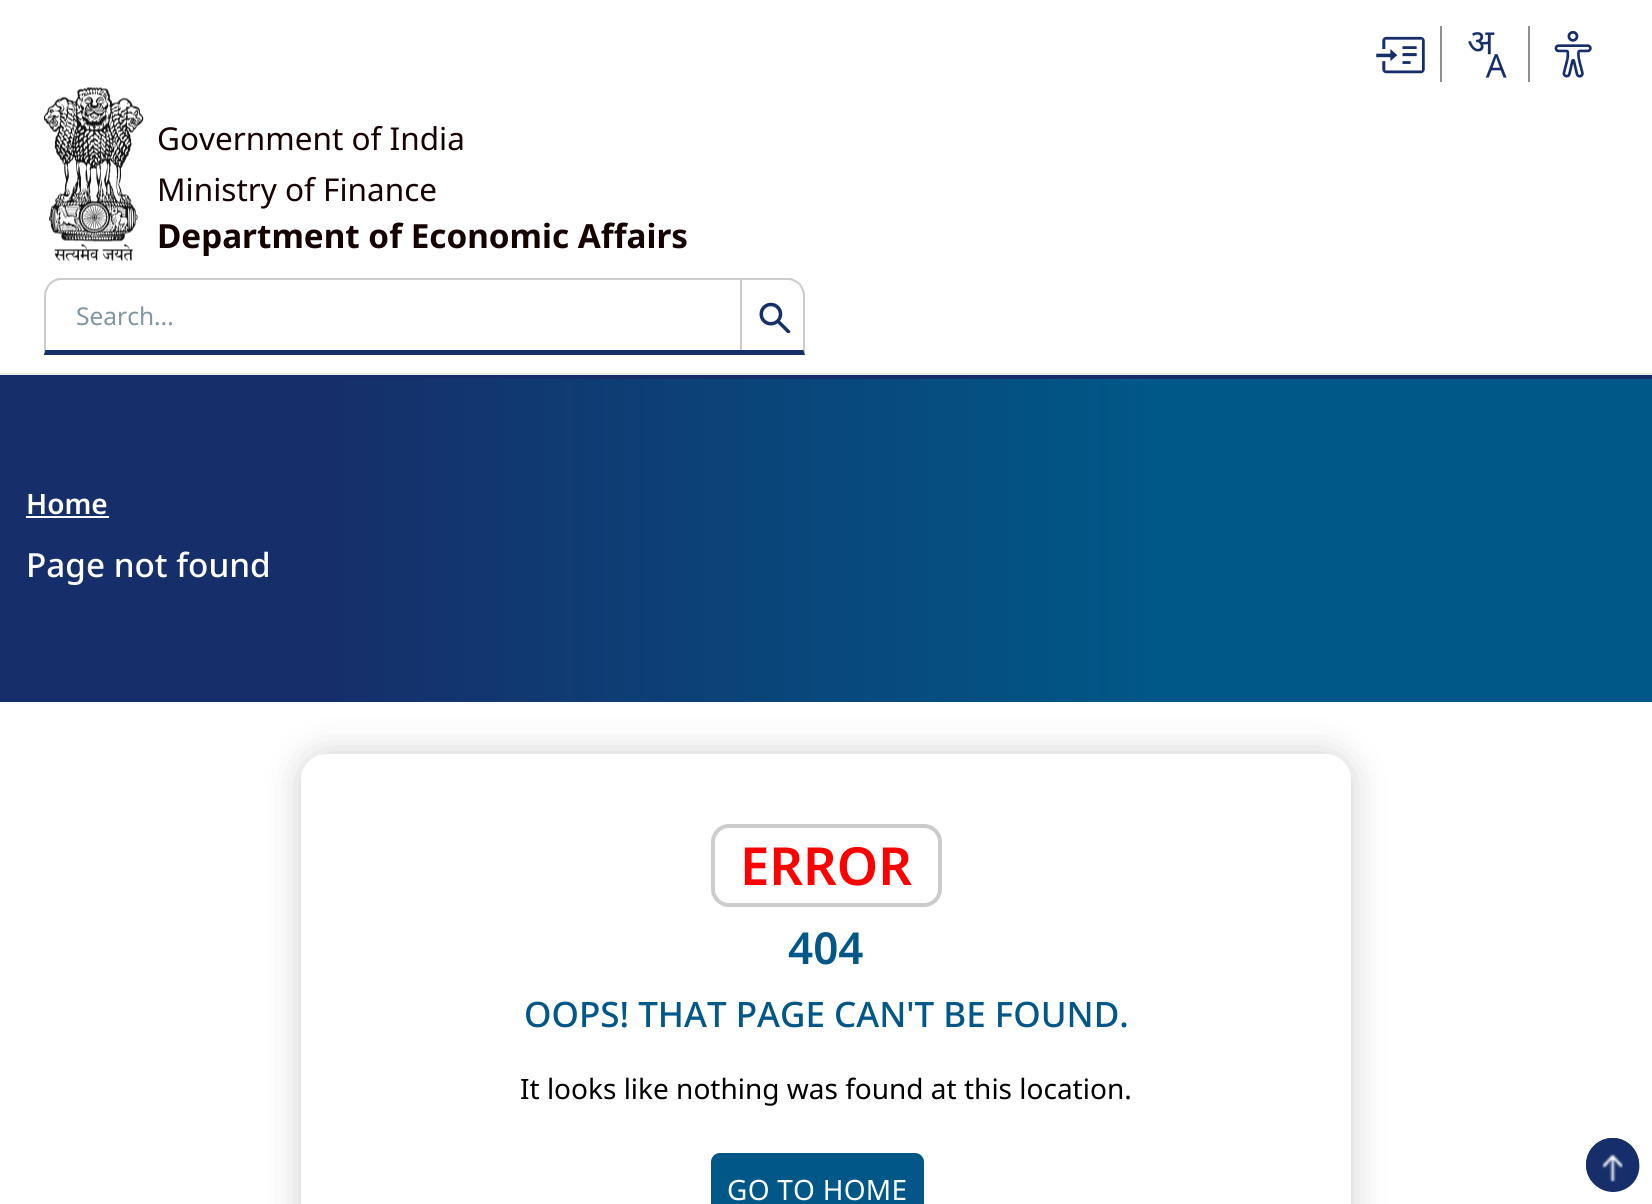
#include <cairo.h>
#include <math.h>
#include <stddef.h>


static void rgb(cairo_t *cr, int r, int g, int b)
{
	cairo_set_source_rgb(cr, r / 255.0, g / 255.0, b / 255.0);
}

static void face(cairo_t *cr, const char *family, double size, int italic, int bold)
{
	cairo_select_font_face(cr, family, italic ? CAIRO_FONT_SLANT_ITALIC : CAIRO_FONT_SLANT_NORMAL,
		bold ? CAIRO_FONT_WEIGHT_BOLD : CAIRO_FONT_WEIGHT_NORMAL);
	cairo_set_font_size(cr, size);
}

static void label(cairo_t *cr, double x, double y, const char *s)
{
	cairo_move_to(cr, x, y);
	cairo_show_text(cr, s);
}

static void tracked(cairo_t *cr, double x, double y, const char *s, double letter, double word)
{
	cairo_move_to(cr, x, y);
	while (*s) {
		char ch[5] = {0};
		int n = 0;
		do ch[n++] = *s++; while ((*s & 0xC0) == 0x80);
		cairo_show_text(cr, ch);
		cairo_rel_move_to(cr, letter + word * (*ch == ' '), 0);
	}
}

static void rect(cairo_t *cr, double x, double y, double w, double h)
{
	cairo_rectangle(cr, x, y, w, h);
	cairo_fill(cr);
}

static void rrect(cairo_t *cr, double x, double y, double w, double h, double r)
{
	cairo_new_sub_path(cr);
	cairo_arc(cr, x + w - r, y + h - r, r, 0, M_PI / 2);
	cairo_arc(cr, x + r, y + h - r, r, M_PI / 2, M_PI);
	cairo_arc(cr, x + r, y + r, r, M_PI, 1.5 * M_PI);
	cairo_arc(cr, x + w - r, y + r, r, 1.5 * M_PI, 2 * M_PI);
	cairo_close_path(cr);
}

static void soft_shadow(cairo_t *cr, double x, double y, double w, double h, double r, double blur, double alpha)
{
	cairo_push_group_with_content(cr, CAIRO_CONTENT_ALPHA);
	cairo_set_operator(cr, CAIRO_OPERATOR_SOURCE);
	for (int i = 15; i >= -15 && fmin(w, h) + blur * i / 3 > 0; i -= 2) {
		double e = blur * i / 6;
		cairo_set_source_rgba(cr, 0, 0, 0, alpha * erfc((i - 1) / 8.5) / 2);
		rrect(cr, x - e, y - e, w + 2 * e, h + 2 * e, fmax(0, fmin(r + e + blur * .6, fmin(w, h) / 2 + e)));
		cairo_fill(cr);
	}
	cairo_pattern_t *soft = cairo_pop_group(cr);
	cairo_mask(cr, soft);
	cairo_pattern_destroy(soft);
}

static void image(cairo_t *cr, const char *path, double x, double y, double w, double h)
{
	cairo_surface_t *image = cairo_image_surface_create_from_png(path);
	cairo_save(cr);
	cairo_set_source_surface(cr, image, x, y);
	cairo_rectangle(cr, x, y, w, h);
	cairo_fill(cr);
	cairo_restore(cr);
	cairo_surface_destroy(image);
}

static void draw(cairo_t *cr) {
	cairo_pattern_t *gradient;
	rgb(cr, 255, 255, 255);
	cairo_paint(cr);
	rgb(cr, 142, 142, 142);
	rect(cr, 1440, 26, 2, 56);
	image(cr, "image0.png", 1376, 36, 49, 38);
	rect(cr, 1528, 26, 2, 56);
	image(cr, "image1.png", 1468, 32, 39, 46);
	image(cr, "image2.png", 1554, 30, 38, 48);
	image(cr, "image3.png", 44, 87, 100, 174);
	face(cr, "Noto Sans", 31.5, 0, 0);
	rgb(cr, 21, 2, 2);
	label(cr, 157, 150, "Government of India");
	label(cr, 157, 201, "Ministry of Finance");
	face(cr, "Noto Sans", 33.25, 0, 1);
	label(cr, 157, 248, "Department of Economic Affairs");
	rgb(cr, 204, 204, 204);
	cairo_new_path(cr);
	cairo_move_to(cr, 61, 280);
	cairo_curve_to(cr, 57, 280, 53, 282, 50, 285);
	cairo_line_to(cr, 49, 283);
	cairo_curve_to(cr, 51, 281, 55, 279, 58, 278);
	cairo_line_to(cr, 791, 278);
	cairo_curve_to(cr, 794, 279, 797, 281, 800, 283);
	cairo_line_to(cr, 799, 285);
	cairo_curve_to(cr, 796, 282, 792, 280, 788, 280);
	cairo_close_path(cr);
	cairo_fill(cr);
	cairo_new_path(cr);
	cairo_move_to(cr, 805, 355);
	cairo_line_to(cr, 805, 296);
	cairo_curve_to(cr, 805, 291, 803, 287, 800, 283);
	cairo_line_to(cr, 799, 285);
	cairo_curve_to(cr, 801, 288, 803, 292, 803, 296);
	cairo_line_to(cr, 803, 349);
	cairo_close_path(cr);
	cairo_fill(cr);
	rgb(cr, 22, 47, 106);
	cairo_new_path(cr);
	cairo_move_to(cr, 805, 355);
	cairo_line_to(cr, 44, 355);
	cairo_line_to(cr, 44, 354);
	cairo_line_to(cr, 46, 348);
	cairo_line_to(cr, 46, 350);
	cairo_line_to(cr, 803, 350);
	cairo_line_to(cr, 803, 349);
	cairo_close_path(cr);
	cairo_fill(cr);
	rgb(cr, 204, 204, 204);
	cairo_new_path(cr);
	cairo_move_to(cr, 44, 354);
	cairo_line_to(cr, 44, 296);
	cairo_curve_to(cr, 44, 291, 46, 287, 49, 283);
	cairo_line_to(cr, 50, 285);
	cairo_curve_to(cr, 48, 288, 46, 292, 46, 296);
	cairo_line_to(cr, 46, 348);
	cairo_close_path(cr);
	cairo_fill(cr);
	rect(cr, 740, 280, 2, 70);
	face(cr, "Noto Sans", 24.5, 0, 0);
	rgb(cr, 129, 150, 162);
	label(cr, 76, 325, "Search...");
	image(cr, "image4.png", 759, 302, 32, 31);
	rgb(cr, 235, 234, 234);
	rect(cr, 0, 373, 1652, 2);
	rgb(cr, 22, 47, 106);
	rect(cr, 0, 375, 1652, 4);
	rgb(cr, 0, 0, 0);
	soft_shadow(cr, 301, 754, 1050, 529, 26, 17.5, 0.2);
	gradient = cairo_pattern_create_linear(0, 540, 1652, 540);
	cairo_pattern_add_color_stop_rgba(gradient, 0.2, 0.086, 0.184, 0.416, 1);
	cairo_pattern_add_color_stop_rgba(gradient, 0.7, 0, 0.345, 0.533, 1);
	cairo_set_source(cr, gradient);
	cairo_pattern_destroy(gradient);
	rect(cr, 0, 379, 1652, 323);
	face(cr, "Noto Sans SemiBold", 28, 0, 0);
	rgb(cr, 255, 255, 255);
	label(cr, 26, 514, "Home");
	rect(cr, 26, 516, 83, 2);
	face(cr, "Noto Sans Medium", 33.25, 0, 0);
	label(cr, 26, 577, "Page not found");
	rrect(cr, 301, 754, 1050, 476, 26);
	cairo_fill(cr);
	rrect(cr, 713, 826, 227, 79, 16);
	rgb(cr, 204, 204, 204);
	cairo_set_line_width(cr, 4);
	cairo_stroke(cr);
	face(cr, "Noto Sans SemiBold", 52.5, 0, 0);
	rgb(cr, 255, 0, 0);
	label(cr, 740, 885, "ERROR");
	face(cr, "Noto Sans SemiBold", 44, 0, 0);
	rgb(cr, 0, 87, 136);
	label(cr, 788, 964, "404");
	face(cr, "Noto Sans Medium", 35, 0, 0);
	label(cr, 524, 1027, "OOPS! THAT PAGE CAN'T BE FOUND.");
	face(cr, "Noto Sans", 28, 0, 0);
	rgb(cr, 0, 0, 0);
	label(cr, 520, 1099, "It looks like nothing was found at this location.");
	rgb(cr, 0, 87, 136);
	rrect(cr, 711, 1153, 213, 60, 9);
	cairo_fill(cr);
	rgb(cr, 255, 255, 255);
	tracked(cr, 727, 1200, "GO TO HOME", 0.25, 0);
	rgb(cr, 22, 47, 106);
	cairo_new_path(cr);
	cairo_arc(cr, 1612.5, 1164.5, 28.5, 0, 2 * M_PI);
	cairo_fill_preserve(cr);
	rgb(cr, 255, 255, 255);
	cairo_stroke(cr);
	rgb(cr, 22, 47, 106);
	cairo_new_path(cr);
	cairo_move_to(cr, 1613, 1138);
	cairo_curve_to(cr, 1637, 1138, 1649, 1170, 1630, 1186);
	cairo_curve_to(cr, 1625, 1190, 1619, 1192, 1613, 1192);
	cairo_curve_to(cr, 1606, 1192, 1599, 1189, 1594, 1184);
	cairo_curve_to(cr, 1577, 1167, 1589, 1138, 1613, 1138);
	cairo_close_path(cr);
	cairo_fill(cr);
	image(cr, "image5.png", 1602, 1154, 21, 28);
}

int main(void) {
	cairo_surface_t *surface = cairo_image_surface_create(CAIRO_FORMAT_RGB24, 1652, 1204);
	cairo_t *cr = cairo_create(surface);
	cairo_font_options_t *options = cairo_font_options_create();
	cairo_font_options_set_hint_metrics(options, CAIRO_HINT_METRICS_OFF);
	cairo_font_options_set_hint_style(options, CAIRO_HINT_STYLE_NONE);
	cairo_set_font_options(cr, options);
	cairo_set_miter_limit(cr, 4);
	draw(cr);
	cairo_surface_write_to_png(surface, "render.png");
	cairo_font_options_destroy(options);
	cairo_destroy(cr);
	cairo_surface_destroy(surface);
	return 0;
}
